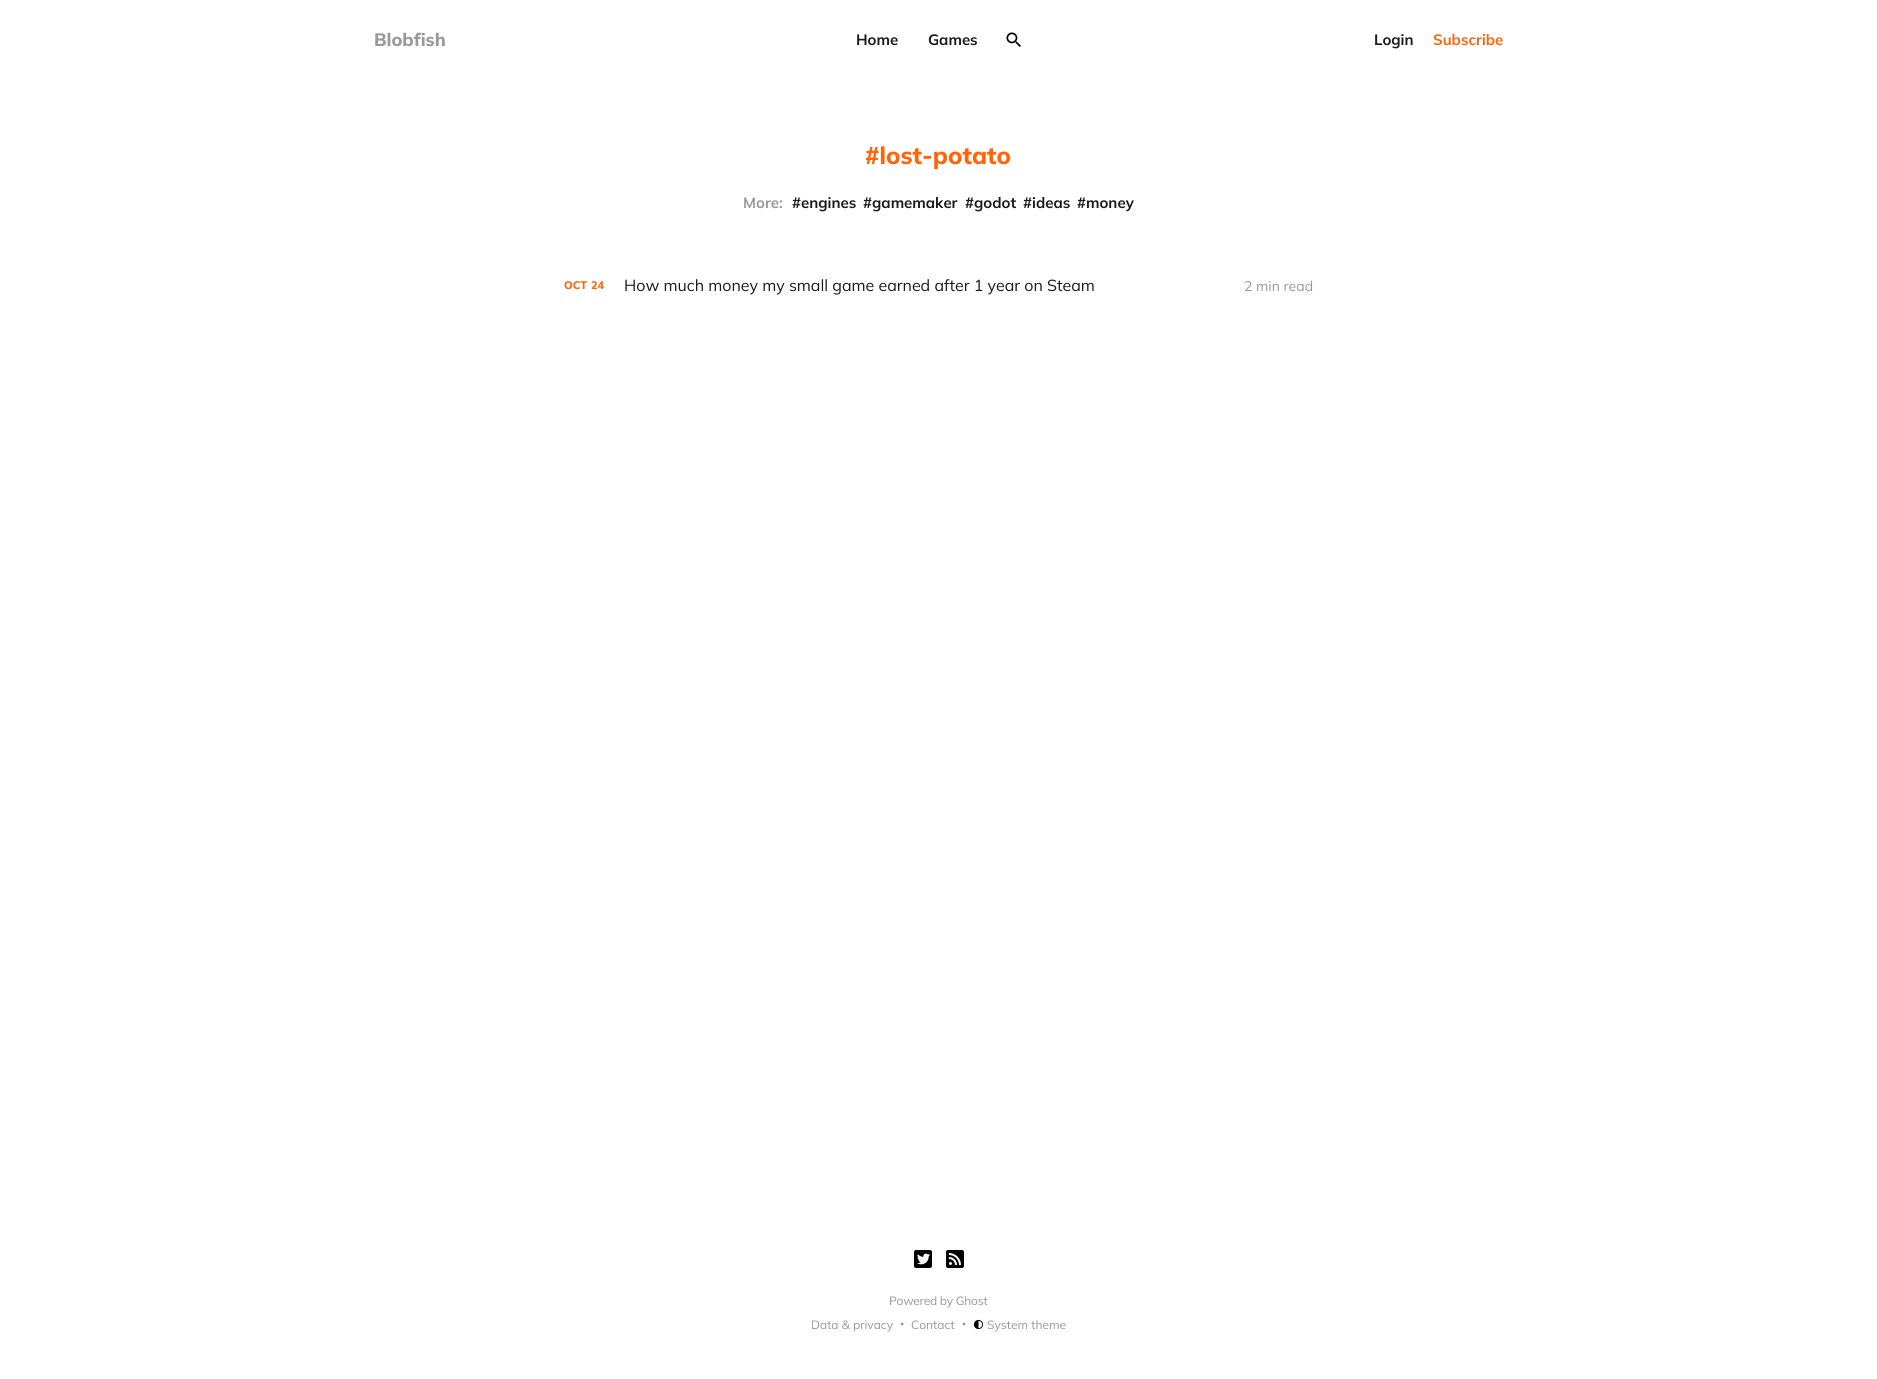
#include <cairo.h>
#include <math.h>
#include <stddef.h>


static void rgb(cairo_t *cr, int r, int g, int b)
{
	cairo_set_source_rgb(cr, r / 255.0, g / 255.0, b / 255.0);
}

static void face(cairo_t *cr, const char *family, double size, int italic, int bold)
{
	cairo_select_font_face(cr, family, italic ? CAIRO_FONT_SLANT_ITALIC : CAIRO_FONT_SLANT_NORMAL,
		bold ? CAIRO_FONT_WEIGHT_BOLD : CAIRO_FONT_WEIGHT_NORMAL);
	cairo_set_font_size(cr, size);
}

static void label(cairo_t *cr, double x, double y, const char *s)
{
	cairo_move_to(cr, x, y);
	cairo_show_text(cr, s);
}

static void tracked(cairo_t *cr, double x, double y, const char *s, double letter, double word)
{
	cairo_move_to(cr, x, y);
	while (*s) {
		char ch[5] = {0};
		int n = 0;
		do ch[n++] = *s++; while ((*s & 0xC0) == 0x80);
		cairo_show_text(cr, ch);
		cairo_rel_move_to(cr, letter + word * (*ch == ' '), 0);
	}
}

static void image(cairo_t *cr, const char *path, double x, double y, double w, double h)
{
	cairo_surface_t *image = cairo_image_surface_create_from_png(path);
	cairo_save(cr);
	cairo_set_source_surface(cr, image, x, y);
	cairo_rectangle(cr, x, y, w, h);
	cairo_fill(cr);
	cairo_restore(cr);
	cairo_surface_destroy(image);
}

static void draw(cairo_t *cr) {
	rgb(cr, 255, 255, 255);
	cairo_paint(cr);
	face(cr, "Mulish ExtraBold", 18, 0, 0);
	rgb(cr, 153, 153, 153);
	label(cr, 374, 46, "Blobfish");
	face(cr, "Mulish", 15, 0, 1);
	rgb(cr, 26, 26, 26);
	label(cr, 856, 45, "Home");
	label(cr, 928, 45, "Games");
	image(cr, "image0.png", 1006, 32, 15, 15);
	label(cr, 1374, 45, "Login");
	rgb(cr, 255, 100, 6);
	label(cr, 1433, 45, "Subscribe");
	face(cr, "Mulish ExtraBold", 24, 0, 0);
	label(cr, 865, 164, "#lost-potato");
	face(cr, "Mulish", 15, 0, 1);
	rgb(cr, 153, 153, 153);
	label(cr, 743, 208, "More:");
	rgb(cr, 26, 26, 26);
	label(cr, 792, 208, "#engines");
	label(cr, 863, 208, "#gamemaker");
	label(cr, 965, 208, "#godot");
	label(cr, 1023, 208, "#ideas");
	label(cr, 1077, 208, "#money");
	face(cr, "Mulish ExtraBold", 11, 0, 0);
	rgb(cr, 255, 100, 6);
	label(cr, 564, 289, "OCT");
	label(cr, 591, 289, "24");
	face(cr, "Mulish", 16, 0, 0);
	rgb(cr, 26, 26, 26);
	label(cr, 624, 291, "How much money my small game earned after 1 year on Steam");
	face(cr, "Mulish", 14, 0, 0);
	rgb(cr, 153, 153, 153);
	label(cr, 1244, 291, "2 min read");
	image(cr, "image1.png", 914, 1250, 18, 18);
	image(cr, "image2.png", 946, 1250, 18, 18);
	face(cr, "Mulish", 12, 0, 0);
	tracked(cr, 889, 1305, "Powered by Ghost", -0.25, 0);
	label(cr, 811, 1329, "Data & privacy");
	face(cr, "Liberation Serif", 12, 0, 0);
	label(cr, 900, 1328, "•");
	face(cr, "Mulish", 12, 0, 0);
	label(cr, 911, 1329, "Contact");
	face(cr, "Liberation Serif", 12, 0, 0);
	label(cr, 962, 1328, "•");
	image(cr, "image3.png", 973, 1319, 11, 11);
	face(cr, "Mulish", 12, 0, 0);
	label(cr, 987, 1329, "System theme");
}

int main(void) {
	cairo_surface_t *surface = cairo_image_surface_create(CAIRO_FORMAT_RGB24, 1877, 1379);
	cairo_t *cr = cairo_create(surface);
	cairo_font_options_t *options = cairo_font_options_create();
	cairo_font_options_set_hint_metrics(options, CAIRO_HINT_METRICS_OFF);
	cairo_font_options_set_hint_style(options, CAIRO_HINT_STYLE_NONE);
	cairo_set_font_options(cr, options);
	cairo_set_miter_limit(cr, 4);
	draw(cr);
	cairo_surface_write_to_png(surface, "render.png");
	cairo_font_options_destroy(options);
	cairo_destroy(cr);
	cairo_surface_destroy(surface);
	return 0;
}
